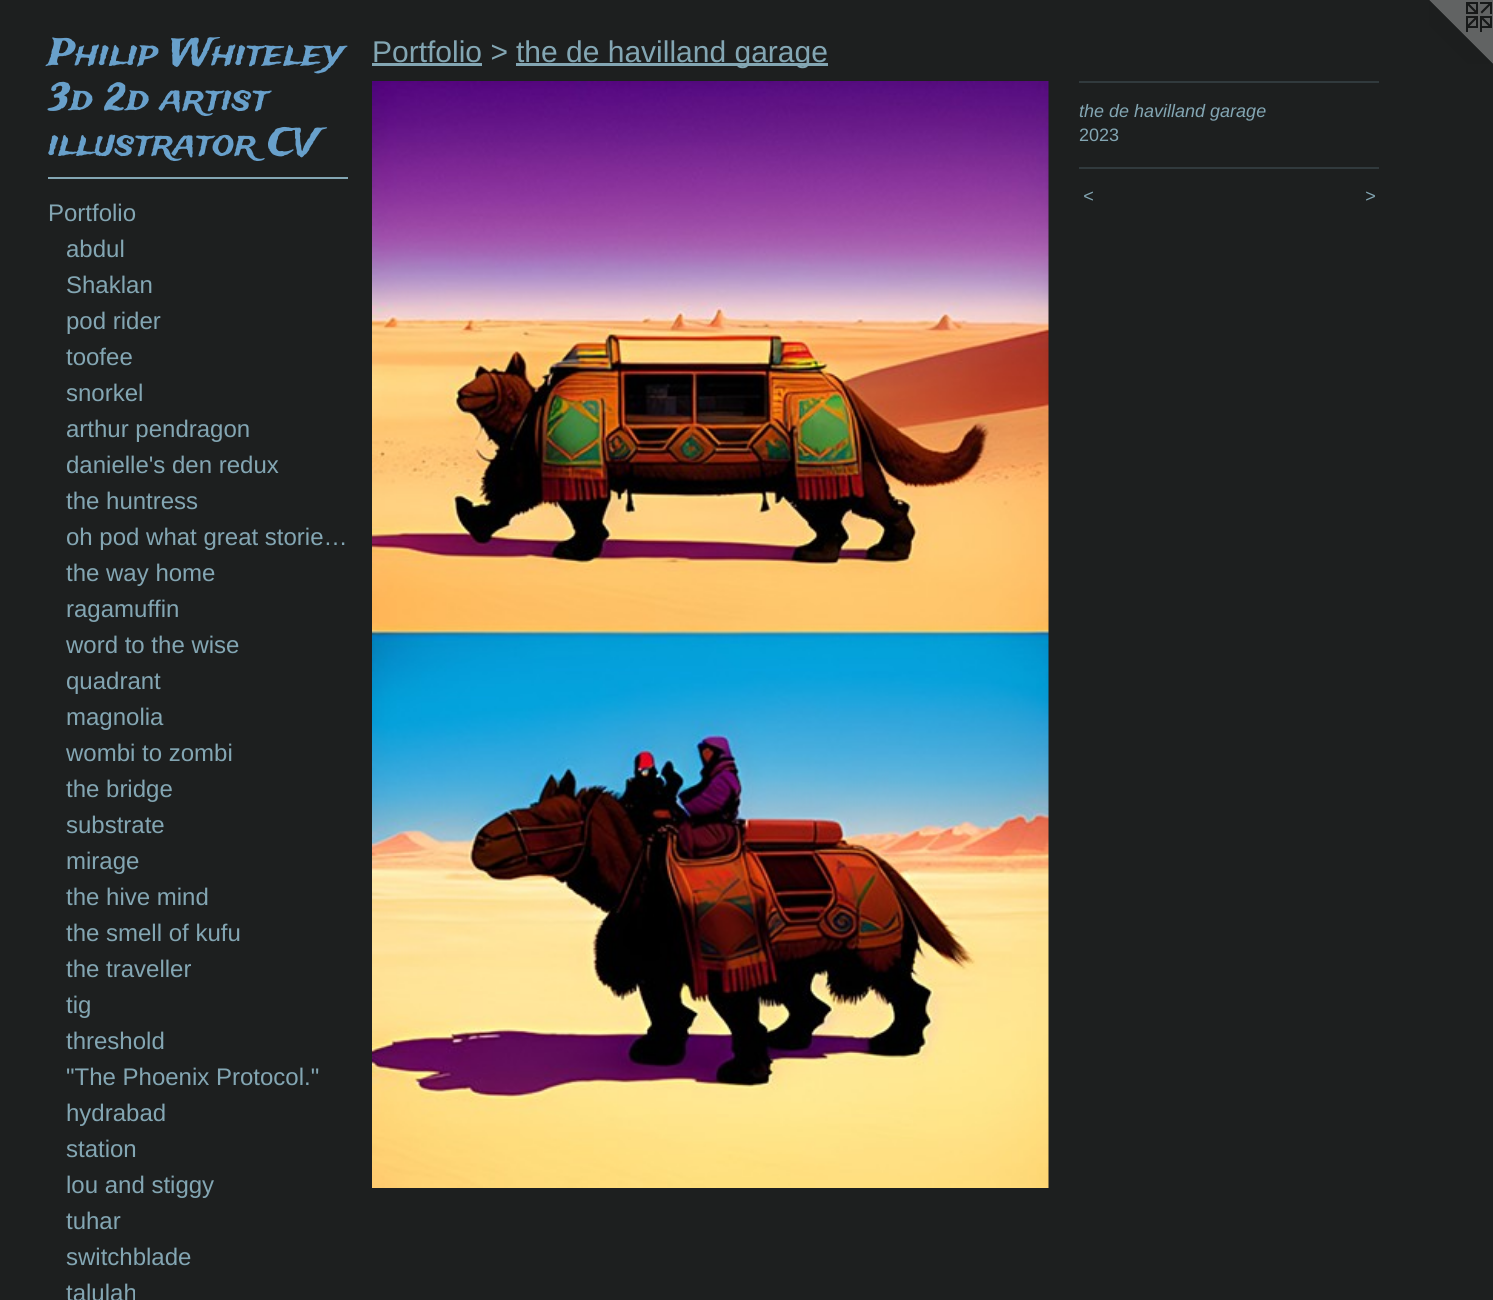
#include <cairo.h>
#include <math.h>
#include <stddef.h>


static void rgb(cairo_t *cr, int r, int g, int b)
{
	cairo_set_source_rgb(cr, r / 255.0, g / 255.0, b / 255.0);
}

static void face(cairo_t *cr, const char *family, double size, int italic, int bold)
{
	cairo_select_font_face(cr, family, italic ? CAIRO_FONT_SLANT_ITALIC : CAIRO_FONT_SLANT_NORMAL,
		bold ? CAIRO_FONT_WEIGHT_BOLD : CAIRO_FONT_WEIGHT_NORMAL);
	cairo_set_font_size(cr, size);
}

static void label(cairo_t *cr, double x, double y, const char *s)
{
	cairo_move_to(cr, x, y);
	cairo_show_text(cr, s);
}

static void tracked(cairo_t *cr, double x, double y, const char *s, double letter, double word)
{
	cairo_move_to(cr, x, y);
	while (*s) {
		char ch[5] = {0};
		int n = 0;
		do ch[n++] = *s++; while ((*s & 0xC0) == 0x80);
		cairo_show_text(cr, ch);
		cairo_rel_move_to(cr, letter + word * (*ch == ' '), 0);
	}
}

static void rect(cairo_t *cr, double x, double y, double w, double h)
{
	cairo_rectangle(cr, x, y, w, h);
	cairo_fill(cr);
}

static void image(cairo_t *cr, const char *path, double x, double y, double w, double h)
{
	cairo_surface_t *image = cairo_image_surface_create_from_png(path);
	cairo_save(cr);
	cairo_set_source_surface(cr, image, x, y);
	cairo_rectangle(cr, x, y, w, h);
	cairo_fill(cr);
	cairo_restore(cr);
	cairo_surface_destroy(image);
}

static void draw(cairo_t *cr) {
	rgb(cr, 29, 31, 31);
	cairo_paint(cr);
	face(cr, "Trade Winds", 37.5, 0, 0);
	rgb(cr, 104, 160, 203);
	label(cr, 48, 65, "Philip Whiteley");
	label(cr, 48, 110, "3d 2d artist");
	label(cr, 48, 155, "illustrator CV");
	rgb(cr, 131, 166, 179);
	rect(cr, 48, 177, 300, 2);
	face(cr, "Liberation Sans", 24, 0, 0);
	label(cr, 48, 221, "Portfolio");
	label(cr, 66, 257, "abdul");
	label(cr, 66, 293, "Shaklan");
	label(cr, 66, 329, "pod rider");
	label(cr, 66, 365, "toofee");
	label(cr, 66, 401, "snorkel");
	label(cr, 66, 437, "arthur pendragon");
	label(cr, 66, 473, "danielle's den redux");
	label(cr, 66, 509, "the huntress");
	label(cr, 66, 545, "oh pod what great storie…");
	label(cr, 66, 581, "the way home");
	label(cr, 66, 617, "ragamuffin");
	label(cr, 66, 653, "word to the wise");
	label(cr, 66, 689, "quadrant");
	label(cr, 66, 725, "magnolia");
	label(cr, 66, 761, "wombi to zombi");
	label(cr, 66, 797, "the bridge");
	label(cr, 66, 833, "substrate");
	label(cr, 66, 869, "mirage");
	label(cr, 66, 905, "the hive mind");
	label(cr, 66, 941, "the smell of kufu");
	label(cr, 66, 977, "the traveller");
	label(cr, 66, 1013, "tig");
	label(cr, 66, 1049, "threshold");
	label(cr, 66, 1085, "\"The Phoenix Protocol.\"");
	label(cr, 66, 1121, "hydrabad");
	label(cr, 66, 1157, "station");
	label(cr, 66, 1193, "lou and stiggy");
	label(cr, 66, 1229, "tuhar");
	label(cr, 66, 1265, "switchblade");
	label(cr, 66, 1301, "talulah");
	image(cr, "image0.png", 1429, 0, 64, 64);
	face(cr, "Liberation Sans", 30, 0, 0);
	label(cr, 372, 62, "Portfolio >");
	rect(cr, 372, 63, 110, 3);
	rect(cr, 516, 63, 312, 3);
	label(cr, 516, 62, "the de havilland garage");
	image(cr, "image1.png", 372, 81, 677, 1107);
	rgb(cr, 49, 58, 61);
	rect(cr, 1079, 81, 300, 2);
	face(cr, "Liberation Sans", 18, 1, 0);
	rgb(cr, 131, 166, 179);
	label(cr, 1079, 117, "the de havilland garage");
	face(cr, "Liberation Sans", 18, 0, 0);
	label(cr, 1079, 141, "2023");
	rgb(cr, 49, 58, 61);
	rect(cr, 1079, 167, 300, 2);
	face(cr, "Liberation Sans", 18, 1, 0);
	rgb(cr, 131, 166, 179);
	tracked(cr, 1083, 202, "<", 2, 0);
	tracked(cr, 1365, 202, ">", 2, 0);
}

int main(void) {
	cairo_surface_t *surface = cairo_image_surface_create(CAIRO_FORMAT_RGB24, 1493, 1300);
	cairo_t *cr = cairo_create(surface);
	cairo_font_options_t *options = cairo_font_options_create();
	cairo_font_options_set_hint_metrics(options, CAIRO_HINT_METRICS_OFF);
	cairo_font_options_set_hint_style(options, CAIRO_HINT_STYLE_NONE);
	cairo_set_font_options(cr, options);
	cairo_set_miter_limit(cr, 4);
	draw(cr);
	cairo_surface_write_to_png(surface, "render.png");
	cairo_font_options_destroy(options);
	cairo_destroy(cr);
	cairo_surface_destroy(surface);
	return 0;
}
